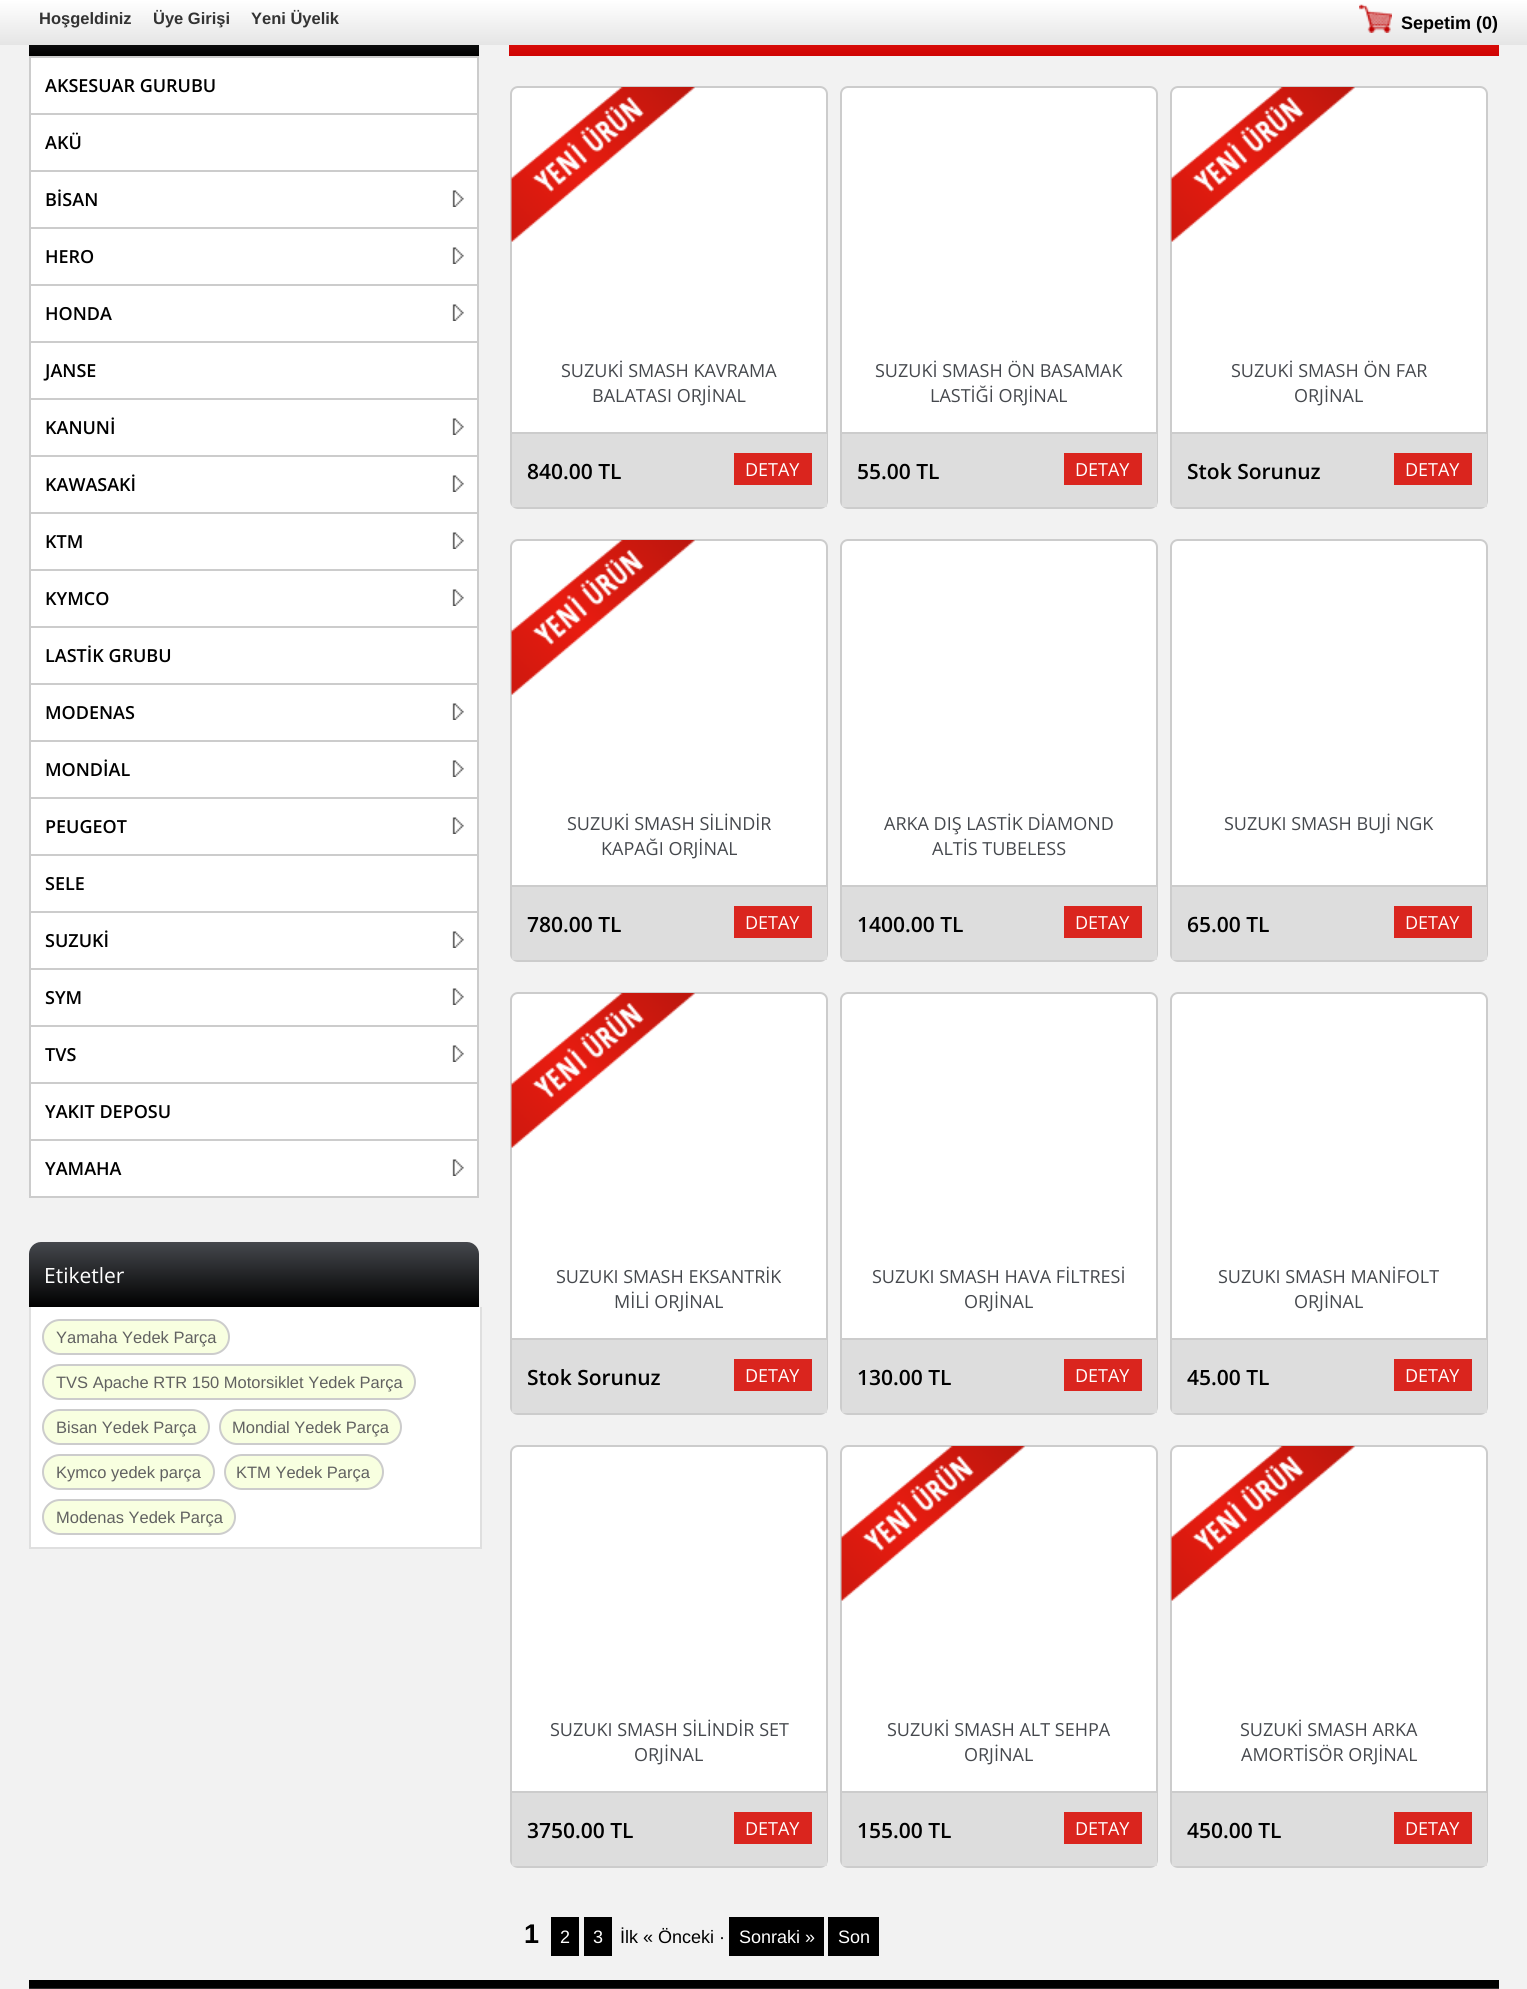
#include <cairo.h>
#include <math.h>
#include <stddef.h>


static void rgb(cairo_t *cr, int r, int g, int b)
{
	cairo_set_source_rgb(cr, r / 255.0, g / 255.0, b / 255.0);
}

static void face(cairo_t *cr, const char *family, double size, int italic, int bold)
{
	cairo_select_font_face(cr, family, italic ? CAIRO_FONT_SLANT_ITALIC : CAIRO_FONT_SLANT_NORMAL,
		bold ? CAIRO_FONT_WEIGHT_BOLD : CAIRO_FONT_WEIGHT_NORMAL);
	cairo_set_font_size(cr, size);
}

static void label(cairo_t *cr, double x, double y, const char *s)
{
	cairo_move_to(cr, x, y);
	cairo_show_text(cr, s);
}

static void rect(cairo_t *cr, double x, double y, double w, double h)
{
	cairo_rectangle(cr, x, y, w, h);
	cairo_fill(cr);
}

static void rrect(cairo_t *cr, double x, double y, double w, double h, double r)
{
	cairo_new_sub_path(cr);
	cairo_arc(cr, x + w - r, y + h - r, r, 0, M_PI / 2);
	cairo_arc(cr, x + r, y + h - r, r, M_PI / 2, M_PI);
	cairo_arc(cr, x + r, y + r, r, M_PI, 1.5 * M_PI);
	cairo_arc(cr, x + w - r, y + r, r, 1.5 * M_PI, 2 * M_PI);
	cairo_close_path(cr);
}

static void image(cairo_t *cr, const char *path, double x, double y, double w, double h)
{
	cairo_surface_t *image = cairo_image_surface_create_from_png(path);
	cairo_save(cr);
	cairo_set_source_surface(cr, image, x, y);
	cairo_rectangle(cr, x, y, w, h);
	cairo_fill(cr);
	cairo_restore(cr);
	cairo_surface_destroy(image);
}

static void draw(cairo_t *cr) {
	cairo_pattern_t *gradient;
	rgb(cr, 242, 242, 242);
	cairo_paint(cr);
	gradient = cairo_pattern_create_linear(764, 0, 764, 45);
	cairo_pattern_add_color_stop_rgba(gradient, 0, 1, 1, 1, 1);
	cairo_pattern_add_color_stop_rgba(gradient, 1, 0.898, 0.898, 0.898, 1);
	cairo_set_source(cr, gradient);
	cairo_pattern_destroy(gradient);
	rect(cr, 0, 0, 1527, 45);
	face(cr, "Liberation Sans", 16.5, 0, 1);
	rgb(cr, 51, 51, 51);
	label(cr, 39, 24, "Hoşgeldiniz");
	label(cr, 153, 24, "Üye Girişi");
	label(cr, 251, 24, "Yeni Üyelik");
	image(cr, "image0.png", 1359, 4, 33, 29);
	face(cr, "Liberation Sans", 18, 0, 1);
	rgb(cr, 0, 0, 0);
	label(cr, 1401, 29, "Sepetim (0)");
	gradient = cairo_pattern_create_linear(254, -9, 254, 56);
	cairo_pattern_add_color_stop_rgba(gradient, 0, 0.271, 0.282, 0.302, 1);
	cairo_pattern_add_color_stop_rgba(gradient, 1, 0, 0, 0, 1);
	cairo_set_source(cr, gradient);
	cairo_pattern_destroy(gradient);
	rect(cr, 29, 45, 450, 11);
	rgb(cr, 255, 255, 255);
	rect(cr, 31, 58, 446, 55);
	rgb(cr, 204, 204, 204);
	rect(cr, 29, 56, 450, 2);
	rect(cr, 477, 56, 2, 57);
	rect(cr, 29, 56, 2, 57);
	face(cr, "Open Sans SemiBold", 18, 0, 0);
	rgb(cr, 0, 0, 0);
	label(cr, 45, 92, "AKSESUAR GURUBU");
	rgb(cr, 255, 255, 255);
	rect(cr, 31, 115, 446, 55);
	rgb(cr, 204, 204, 204);
	rect(cr, 29, 113, 450, 2);
	rect(cr, 477, 113, 2, 57);
	rect(cr, 29, 113, 2, 57);
	rgb(cr, 0, 0, 0);
	label(cr, 45, 149, "AKÜ");
	rgb(cr, 255, 255, 255);
	rect(cr, 31, 172, 446, 55);
	image(cr, "image1.png", 452, 190, 12, 17);
	rgb(cr, 204, 204, 204);
	rect(cr, 29, 170, 450, 2);
	rect(cr, 477, 170, 2, 57);
	rect(cr, 29, 170, 2, 57);
	rgb(cr, 0, 0, 0);
	label(cr, 45, 206, "BİSAN");
	rgb(cr, 255, 255, 255);
	rect(cr, 31, 229, 446, 55);
	image(cr, "image1.png", 452, 247, 12, 17);
	rgb(cr, 204, 204, 204);
	rect(cr, 29, 227, 450, 2);
	rect(cr, 477, 227, 2, 57);
	rect(cr, 29, 227, 2, 57);
	rgb(cr, 0, 0, 0);
	label(cr, 45, 263, "HERO");
	rgb(cr, 255, 255, 255);
	rect(cr, 31, 286, 446, 55);
	image(cr, "image1.png", 452, 304, 12, 17);
	rgb(cr, 204, 204, 204);
	rect(cr, 29, 284, 450, 2);
	rect(cr, 477, 284, 2, 57);
	rect(cr, 29, 284, 2, 57);
	rgb(cr, 0, 0, 0);
	label(cr, 45, 320, "HONDA");
	rgb(cr, 255, 255, 255);
	rect(cr, 31, 343, 446, 55);
	rgb(cr, 204, 204, 204);
	rect(cr, 29, 341, 450, 2);
	rect(cr, 477, 341, 2, 57);
	rect(cr, 29, 341, 2, 57);
	rgb(cr, 0, 0, 0);
	label(cr, 45, 377, "JANSE");
	rgb(cr, 255, 255, 255);
	rect(cr, 31, 400, 446, 55);
	image(cr, "image1.png", 452, 418, 12, 17);
	rgb(cr, 204, 204, 204);
	rect(cr, 29, 398, 450, 2);
	rect(cr, 477, 398, 2, 57);
	rect(cr, 29, 398, 2, 57);
	rgb(cr, 0, 0, 0);
	label(cr, 45, 434, "KANUNİ");
	rgb(cr, 255, 255, 255);
	rect(cr, 31, 457, 446, 55);
	image(cr, "image1.png", 452, 475, 12, 17);
	rgb(cr, 204, 204, 204);
	rect(cr, 29, 455, 450, 2);
	rect(cr, 477, 455, 2, 57);
	rect(cr, 29, 455, 2, 57);
	rgb(cr, 0, 0, 0);
	label(cr, 45, 491, "KAWASAKİ");
	rgb(cr, 255, 255, 255);
	rect(cr, 31, 514, 446, 55);
	image(cr, "image1.png", 452, 532, 12, 17);
	rgb(cr, 204, 204, 204);
	rect(cr, 29, 512, 450, 2);
	rect(cr, 477, 512, 2, 57);
	rect(cr, 29, 512, 2, 57);
	rgb(cr, 0, 0, 0);
	label(cr, 45, 548, "KTM");
	rgb(cr, 255, 255, 255);
	rect(cr, 31, 571, 446, 55);
	image(cr, "image1.png", 452, 589, 12, 17);
	rgb(cr, 204, 204, 204);
	rect(cr, 29, 569, 450, 2);
	rect(cr, 477, 569, 2, 57);
	rect(cr, 29, 569, 2, 57);
	rgb(cr, 0, 0, 0);
	label(cr, 45, 605, "KYMCO");
	rgb(cr, 255, 255, 255);
	rect(cr, 31, 628, 446, 55);
	rgb(cr, 204, 204, 204);
	rect(cr, 29, 626, 450, 2);
	rect(cr, 477, 626, 2, 57);
	rect(cr, 29, 626, 2, 57);
	rgb(cr, 0, 0, 0);
	label(cr, 45, 662, "LASTİK GRUBU");
	rgb(cr, 255, 255, 255);
	rect(cr, 31, 685, 446, 55);
	image(cr, "image1.png", 452, 703, 12, 17);
	rgb(cr, 204, 204, 204);
	rect(cr, 29, 683, 450, 2);
	rect(cr, 477, 683, 2, 57);
	rect(cr, 29, 683, 2, 57);
	rgb(cr, 0, 0, 0);
	label(cr, 45, 719, "MODENAS");
	rgb(cr, 255, 255, 255);
	rect(cr, 31, 742, 446, 55);
	image(cr, "image1.png", 452, 760, 12, 17);
	rgb(cr, 204, 204, 204);
	rect(cr, 29, 740, 450, 2);
	rect(cr, 477, 740, 2, 57);
	rect(cr, 29, 740, 2, 57);
	rgb(cr, 0, 0, 0);
	label(cr, 45, 776, "MONDİAL");
	rgb(cr, 255, 255, 255);
	rect(cr, 31, 799, 446, 55);
	image(cr, "image1.png", 452, 817, 12, 17);
	rgb(cr, 204, 204, 204);
	rect(cr, 29, 797, 450, 2);
	rect(cr, 477, 797, 2, 57);
	rect(cr, 29, 797, 2, 57);
	rgb(cr, 0, 0, 0);
	label(cr, 45, 833, "PEUGEOT");
	rgb(cr, 255, 255, 255);
	rect(cr, 31, 856, 446, 55);
	rgb(cr, 204, 204, 204);
	rect(cr, 29, 854, 450, 2);
	rect(cr, 477, 854, 2, 57);
	rect(cr, 29, 854, 2, 57);
	rgb(cr, 0, 0, 0);
	label(cr, 45, 890, "SELE");
	rgb(cr, 255, 255, 255);
	rect(cr, 31, 913, 446, 55);
	image(cr, "image1.png", 452, 931, 12, 17);
	rgb(cr, 204, 204, 204);
	rect(cr, 29, 911, 450, 2);
	rect(cr, 477, 911, 2, 57);
	rect(cr, 29, 911, 2, 57);
	rgb(cr, 0, 0, 0);
	label(cr, 45, 947, "SUZUKİ");
	rgb(cr, 255, 255, 255);
	rect(cr, 31, 970, 446, 55);
	image(cr, "image1.png", 452, 988, 12, 17);
	rgb(cr, 204, 204, 204);
	rect(cr, 29, 968, 450, 2);
	rect(cr, 477, 968, 2, 57);
	rect(cr, 29, 968, 2, 57);
	rgb(cr, 0, 0, 0);
	label(cr, 45, 1004, "SYM");
	rgb(cr, 255, 255, 255);
	rect(cr, 31, 1027, 446, 55);
	image(cr, "image1.png", 452, 1045, 12, 17);
	rgb(cr, 204, 204, 204);
	rect(cr, 29, 1025, 450, 2);
	rect(cr, 477, 1025, 2, 57);
	rect(cr, 29, 1025, 2, 57);
	rgb(cr, 0, 0, 0);
	label(cr, 45, 1061, "TVS");
	rgb(cr, 255, 255, 255);
	rect(cr, 31, 1084, 446, 55);
	rgb(cr, 204, 204, 204);
	rect(cr, 29, 1082, 450, 2);
	rect(cr, 477, 1082, 2, 57);
	rect(cr, 29, 1082, 2, 57);
	rgb(cr, 0, 0, 0);
	label(cr, 45, 1118, "YAKIT DEPOSU");
	rgb(cr, 255, 255, 255);
	rect(cr, 31, 1141, 446, 55);
	rgb(cr, 204, 204, 204);
	rect(cr, 29, 1196, 450, 2);
	image(cr, "image1.png", 452, 1159, 12, 17);
	rect(cr, 29, 1139, 450, 2);
	rect(cr, 477, 1139, 2, 57);
	rect(cr, 29, 1139, 2, 57);
	rgb(cr, 0, 0, 0);
	label(cr, 45, 1175, "YAMAHA");
	gradient = cairo_pattern_create_linear(254, 1242, 254, 1307);
	cairo_pattern_add_color_stop_rgba(gradient, 0, 0.271, 0.282, 0.302, 1);
	cairo_pattern_add_color_stop_rgba(gradient, 1, 0, 0, 0, 1);
	cairo_set_source(cr, gradient);
	cairo_pattern_destroy(gradient);
	cairo_new_path(cr);
	cairo_move_to(cr, 41, 1242);
	cairo_line_to(cr, 467, 1242);
	cairo_curve_to(cr, 473.5, 1242, 479, 1247.5, 479, 1254);
	cairo_line_to(cr, 479, 1307);
	cairo_line_to(cr, 29, 1307);
	cairo_line_to(cr, 29, 1254);
	cairo_curve_to(cr, 29, 1247.5, 34.5, 1242, 41, 1242);
	cairo_close_path(cr);
	cairo_fill(cr);
	face(cr, "Open Sans", 21, 0, 0);
	rgb(cr, 255, 255, 255);
	label(cr, 44, 1283, "Etiketler");
	rect(cr, 31, 1307, 449, 240);
	rgb(cr, 223, 223, 223);
	rect(cr, 480, 1307, 2, 241);
	rect(cr, 29, 1547, 453, 2);
	rect(cr, 29, 1307, 2, 241);
	rgb(cr, 248, 255, 224);
	rrect(cr, 43, 1320, 186, 34, 17);
	cairo_fill_preserve(cr);
	rgb(cr, 204, 204, 204);
	cairo_stroke(cr);
	face(cr, "Liberation Sans", 16.5, 0, 0);
	rgb(cr, 97, 97, 97);
	label(cr, 56, 1343, "Yamaha Yedek Parça");
	rgb(cr, 248, 255, 224);
	rrect(cr, 43, 1365, 372, 34, 17);
	cairo_fill_preserve(cr);
	rgb(cr, 204, 204, 204);
	cairo_stroke(cr);
	rgb(cr, 97, 97, 97);
	label(cr, 56, 1388, "TVS Apache RTR 150 Motorsiklet Yedek Parça");
	rgb(cr, 248, 255, 224);
	rrect(cr, 43, 1410, 166, 34, 17);
	cairo_fill_preserve(cr);
	rgb(cr, 204, 204, 204);
	cairo_stroke(cr);
	rgb(cr, 97, 97, 97);
	label(cr, 56, 1433, "Bisan Yedek Parça");
	rgb(cr, 248, 255, 224);
	rrect(cr, 220, 1410, 181, 34, 17);
	cairo_fill_preserve(cr);
	rgb(cr, 204, 204, 204);
	cairo_stroke(cr);
	rgb(cr, 97, 97, 97);
	label(cr, 232, 1433, "Mondial Yedek Parça");
	rgb(cr, 248, 255, 224);
	rrect(cr, 43, 1455, 171, 34, 17);
	cairo_fill_preserve(cr);
	rgb(cr, 204, 204, 204);
	cairo_stroke(cr);
	rgb(cr, 97, 97, 97);
	label(cr, 56, 1478, "Kymco yedek parça");
	rgb(cr, 248, 255, 224);
	rrect(cr, 225, 1455, 158, 34, 17);
	cairo_fill_preserve(cr);
	rgb(cr, 204, 204, 204);
	cairo_stroke(cr);
	rgb(cr, 97, 97, 97);
	label(cr, 236, 1478, "KTM Yedek Parça");
	rgb(cr, 248, 255, 224);
	rrect(cr, 43, 1500, 192, 34, 17);
	cairo_fill_preserve(cr);
	rgb(cr, 204, 204, 204);
	cairo_stroke(cr);
	rgb(cr, 97, 97, 97);
	label(cr, 56, 1523, "Modenas Yedek Parça");
	gradient = cairo_pattern_create_linear(1004, -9, 1004, 56);
	cairo_pattern_add_color_stop_rgba(gradient, 0, 1, 0.188, 0.098, 1);
	cairo_pattern_add_color_stop_rgba(gradient, 1, 0.812, 0.016, 0.016, 1);
	cairo_set_source(cr, gradient);
	cairo_pattern_destroy(gradient);
	rect(cr, 509, 45, 990, 11);
	rgb(cr, 255, 255, 255);
	rrect(cr, 511, 87, 316, 421, 7);
	cairo_fill_preserve(cr);
	rgb(cr, 204, 204, 204);
	cairo_stroke(cr);
	image(cr, "image2.png", 511, 87, 184, 155);
	face(cr, "Open Sans", 18, 0, 0);
	rgb(cr, 69, 72, 77);
	label(cr, 561, 377, "SUZUKİ SMASH KAVRAMA");
	label(cr, 592, 402, "BALATASI ORJİNAL");
	rgb(cr, 221, 221, 221);
	rect(cr, 512, 434, 315, 73);
	rgb(cr, 204, 204, 204);
	rect(cr, 512, 432, 315, 2);
	face(cr, "Open Sans SemiBold", 21, 0, 0);
	rgb(cr, 0, 0, 0);
	label(cr, 527, 479, "840.00 TL");
	rgb(cr, 218, 37, 30);
	rect(cr, 734, 453, 78, 32);
	face(cr, "Open Sans", 18, 0, 0);
	rgb(cr, 255, 255, 255);
	label(cr, 745, 476, "DETAY");
	rrect(cr, 841, 87, 316, 421, 7);
	cairo_fill_preserve(cr);
	rgb(cr, 204, 204, 204);
	cairo_stroke(cr);
	rgb(cr, 69, 72, 77);
	label(cr, 875, 377, "SUZUKİ SMASH ÖN BASAMAK");
	label(cr, 930, 402, "LASTİĞİ ORJİNAL");
	rgb(cr, 221, 221, 221);
	rect(cr, 842, 434, 315, 73);
	rgb(cr, 204, 204, 204);
	rect(cr, 842, 432, 315, 2);
	face(cr, "Open Sans SemiBold", 21, 0, 0);
	rgb(cr, 0, 0, 0);
	label(cr, 857, 479, "55.00 TL");
	rgb(cr, 218, 37, 30);
	rect(cr, 1064, 453, 78, 32);
	face(cr, "Open Sans", 18, 0, 0);
	rgb(cr, 255, 255, 255);
	label(cr, 1075, 476, "DETAY");
	rrect(cr, 1171, 87, 316, 421, 7);
	cairo_fill_preserve(cr);
	rgb(cr, 204, 204, 204);
	cairo_stroke(cr);
	image(cr, "image3.png", 1171, 87, 184, 155);
	rgb(cr, 69, 72, 77);
	label(cr, 1231, 377, "SUZUKİ SMASH ÖN FAR");
	label(cr, 1294, 402, "ORJİNAL");
	rgb(cr, 221, 221, 221);
	rect(cr, 1172, 434, 315, 73);
	rgb(cr, 204, 204, 204);
	rect(cr, 1172, 432, 315, 2);
	face(cr, "Open Sans SemiBold", 21, 0, 0);
	rgb(cr, 0, 0, 0);
	label(cr, 1187, 479, "Stok Sorunuz");
	rgb(cr, 218, 37, 30);
	rect(cr, 1394, 453, 78, 32);
	face(cr, "Open Sans", 18, 0, 0);
	rgb(cr, 255, 255, 255);
	label(cr, 1405, 476, "DETAY");
	rrect(cr, 511, 540, 316, 421, 7);
	cairo_fill_preserve(cr);
	rgb(cr, 204, 204, 204);
	cairo_stroke(cr);
	image(cr, "image2.png", 511, 540, 184, 155);
	rgb(cr, 69, 72, 77);
	label(cr, 567, 830, "SUZUKİ SMASH SİLİNDİR");
	label(cr, 601, 855, "KAPAĞI ORJİNAL");
	rgb(cr, 221, 221, 221);
	rect(cr, 512, 887, 315, 73);
	rgb(cr, 204, 204, 204);
	rect(cr, 512, 885, 315, 2);
	face(cr, "Open Sans SemiBold", 21, 0, 0);
	rgb(cr, 0, 0, 0);
	label(cr, 527, 932, "780.00 TL");
	rgb(cr, 218, 37, 30);
	rect(cr, 734, 906, 78, 32);
	face(cr, "Open Sans", 18, 0, 0);
	rgb(cr, 255, 255, 255);
	label(cr, 745, 929, "DETAY");
	rrect(cr, 841, 540, 316, 421, 7);
	cairo_fill_preserve(cr);
	rgb(cr, 204, 204, 204);
	cairo_stroke(cr);
	rgb(cr, 69, 72, 77);
	label(cr, 884, 830, "ARKA DIŞ LASTİK DİAMOND");
	label(cr, 932, 855, "ALTİS TUBELESS");
	rgb(cr, 221, 221, 221);
	rect(cr, 842, 887, 315, 73);
	rgb(cr, 204, 204, 204);
	rect(cr, 842, 885, 315, 2);
	face(cr, "Open Sans SemiBold", 21, 0, 0);
	rgb(cr, 0, 0, 0);
	label(cr, 857, 932, "1400.00 TL");
	rgb(cr, 218, 37, 30);
	rect(cr, 1064, 906, 78, 32);
	face(cr, "Open Sans", 18, 0, 0);
	rgb(cr, 255, 255, 255);
	label(cr, 1075, 929, "DETAY");
	rrect(cr, 1171, 540, 316, 421, 7);
	cairo_fill_preserve(cr);
	rgb(cr, 204, 204, 204);
	cairo_stroke(cr);
	rgb(cr, 69, 72, 77);
	label(cr, 1224, 830, "SUZUKI SMASH BUJİ NGK");
	rgb(cr, 221, 221, 221);
	rect(cr, 1172, 887, 315, 73);
	rgb(cr, 204, 204, 204);
	rect(cr, 1172, 885, 315, 2);
	face(cr, "Open Sans SemiBold", 21, 0, 0);
	rgb(cr, 0, 0, 0);
	label(cr, 1187, 932, "65.00 TL");
	rgb(cr, 218, 37, 30);
	rect(cr, 1394, 906, 78, 32);
	face(cr, "Open Sans", 18, 0, 0);
	rgb(cr, 255, 255, 255);
	label(cr, 1405, 929, "DETAY");
	rrect(cr, 511, 993, 316, 421, 7);
	cairo_fill_preserve(cr);
	rgb(cr, 204, 204, 204);
	cairo_stroke(cr);
	image(cr, "image2.png", 511, 993, 184, 155);
	rgb(cr, 69, 72, 77);
	label(cr, 556, 1283, "SUZUKI SMASH EKSANTRİK");
	label(cr, 614, 1308, "MİLİ ORJİNAL");
	rgb(cr, 221, 221, 221);
	rect(cr, 512, 1340, 315, 73);
	rgb(cr, 204, 204, 204);
	rect(cr, 512, 1338, 315, 2);
	face(cr, "Open Sans SemiBold", 21, 0, 0);
	rgb(cr, 0, 0, 0);
	label(cr, 527, 1385, "Stok Sorunuz");
	rgb(cr, 218, 37, 30);
	rect(cr, 734, 1359, 78, 32);
	face(cr, "Open Sans", 18, 0, 0);
	rgb(cr, 255, 255, 255);
	label(cr, 745, 1382, "DETAY");
	rrect(cr, 841, 993, 316, 421, 7);
	cairo_fill_preserve(cr);
	rgb(cr, 204, 204, 204);
	cairo_stroke(cr);
	rgb(cr, 69, 72, 77);
	label(cr, 872, 1283, "SUZUKI SMASH HAVA FİLTRESİ");
	label(cr, 964, 1308, "ORJİNAL");
	rgb(cr, 221, 221, 221);
	rect(cr, 842, 1340, 315, 73);
	rgb(cr, 204, 204, 204);
	rect(cr, 842, 1338, 315, 2);
	face(cr, "Open Sans SemiBold", 21, 0, 0);
	rgb(cr, 0, 0, 0);
	label(cr, 857, 1385, "130.00 TL");
	rgb(cr, 218, 37, 30);
	rect(cr, 1064, 1359, 78, 32);
	face(cr, "Open Sans", 18, 0, 0);
	rgb(cr, 255, 255, 255);
	label(cr, 1075, 1382, "DETAY");
	rrect(cr, 1171, 993, 316, 421, 7);
	cairo_fill_preserve(cr);
	rgb(cr, 204, 204, 204);
	cairo_stroke(cr);
	rgb(cr, 69, 72, 77);
	label(cr, 1218, 1283, "SUZUKI SMASH MANİFOLT");
	label(cr, 1294, 1308, "ORJİNAL");
	rgb(cr, 221, 221, 221);
	rect(cr, 1172, 1340, 315, 73);
	rgb(cr, 204, 204, 204);
	rect(cr, 1172, 1338, 315, 2);
	face(cr, "Open Sans SemiBold", 21, 0, 0);
	rgb(cr, 0, 0, 0);
	label(cr, 1187, 1385, "45.00 TL");
	rgb(cr, 218, 37, 30);
	rect(cr, 1394, 1359, 78, 32);
	face(cr, "Open Sans", 18, 0, 0);
	rgb(cr, 255, 255, 255);
	label(cr, 1405, 1382, "DETAY");
	rrect(cr, 511, 1446, 316, 421, 7);
	cairo_fill_preserve(cr);
	rgb(cr, 204, 204, 204);
	cairo_stroke(cr);
	rgb(cr, 69, 72, 77);
	label(cr, 550, 1736, "SUZUKI SMASH SİLİNDİR SET");
	label(cr, 634, 1761, "ORJİNAL");
	rgb(cr, 221, 221, 221);
	rect(cr, 512, 1793, 315, 73);
	rgb(cr, 204, 204, 204);
	rect(cr, 512, 1791, 315, 2);
	face(cr, "Open Sans SemiBold", 21, 0, 0);
	rgb(cr, 0, 0, 0);
	label(cr, 527, 1838, "3750.00 TL");
	rgb(cr, 218, 37, 30);
	rect(cr, 734, 1812, 78, 32);
	face(cr, "Open Sans", 18, 0, 0);
	rgb(cr, 255, 255, 255);
	label(cr, 745, 1835, "DETAY");
	rrect(cr, 841, 1446, 316, 421, 7);
	cairo_fill_preserve(cr);
	rgb(cr, 204, 204, 204);
	cairo_stroke(cr);
	image(cr, "image4.png", 841, 1446, 184, 155);
	rgb(cr, 69, 72, 77);
	label(cr, 887, 1736, "SUZUKİ SMASH ALT SEHPA");
	label(cr, 964, 1761, "ORJİNAL");
	rgb(cr, 221, 221, 221);
	rect(cr, 842, 1793, 315, 73);
	rgb(cr, 204, 204, 204);
	rect(cr, 842, 1791, 315, 2);
	face(cr, "Open Sans SemiBold", 21, 0, 0);
	rgb(cr, 0, 0, 0);
	label(cr, 857, 1838, "155.00 TL");
	rgb(cr, 218, 37, 30);
	rect(cr, 1064, 1812, 78, 32);
	face(cr, "Open Sans", 18, 0, 0);
	rgb(cr, 255, 255, 255);
	label(cr, 1075, 1835, "DETAY");
	rrect(cr, 1171, 1446, 316, 421, 7);
	cairo_fill_preserve(cr);
	rgb(cr, 204, 204, 204);
	cairo_stroke(cr);
	image(cr, "image3.png", 1171, 1446, 184, 155);
	rgb(cr, 69, 72, 77);
	label(cr, 1240, 1736, "SUZUKİ SMASH ARKA");
	label(cr, 1241, 1761, "AMORTİSÖR ORJİNAL");
	rgb(cr, 221, 221, 221);
	rect(cr, 1172, 1793, 315, 73);
	rgb(cr, 204, 204, 204);
	rect(cr, 1172, 1791, 315, 2);
	face(cr, "Open Sans SemiBold", 21, 0, 0);
	rgb(cr, 0, 0, 0);
	label(cr, 1187, 1838, "450.00 TL");
	rgb(cr, 218, 37, 30);
	rect(cr, 1394, 1812, 78, 32);
	face(cr, "Open Sans", 18, 0, 0);
	rgb(cr, 255, 255, 255);
	label(cr, 1405, 1835, "DETAY");
	face(cr, "Liberation Sans", 27, 0, 1);
	rgb(cr, 0, 0, 0);
	label(cr, 524, 1943, "1");
	rect(cr, 551, 1917, 28, 39);
	face(cr, "Liberation Sans", 18, 0, 0);
	rgb(cr, 255, 255, 255);
	label(cr, 560, 1943, "2");
	rgb(cr, 0, 0, 0);
	rect(cr, 584, 1917, 28, 39);
	rgb(cr, 255, 255, 255);
	label(cr, 593, 1943, "3");
	rgb(cr, 0, 0, 0);
	label(cr, 620, 1943, "İlk « Önceki ·");
	rect(cr, 729, 1917, 95, 39);
	rgb(cr, 255, 255, 255);
	label(cr, 739, 1943, "Sonraki »");
	rgb(cr, 0, 0, 0);
	rect(cr, 828, 1917, 51, 39);
	rgb(cr, 255, 255, 255);
	label(cr, 838, 1943, "Son");
	rgb(cr, 48, 48, 48);
	rect(cr, 29, 1988, 1470, 1);
	rgb(cr, 0, 0, 0);
	rect(cr, 29, 1980, 1470, 8);
}

int main(void) {
	cairo_surface_t *surface = cairo_image_surface_create(CAIRO_FORMAT_RGB24, 1527, 1989);
	cairo_t *cr = cairo_create(surface);
	cairo_font_options_t *options = cairo_font_options_create();
	cairo_font_options_set_hint_metrics(options, CAIRO_HINT_METRICS_OFF);
	cairo_font_options_set_hint_style(options, CAIRO_HINT_STYLE_NONE);
	cairo_set_font_options(cr, options);
	cairo_set_miter_limit(cr, 4);
	draw(cr);
	cairo_surface_write_to_png(surface, "render.png");
	cairo_font_options_destroy(options);
	cairo_destroy(cr);
	cairo_surface_destroy(surface);
	return 0;
}
